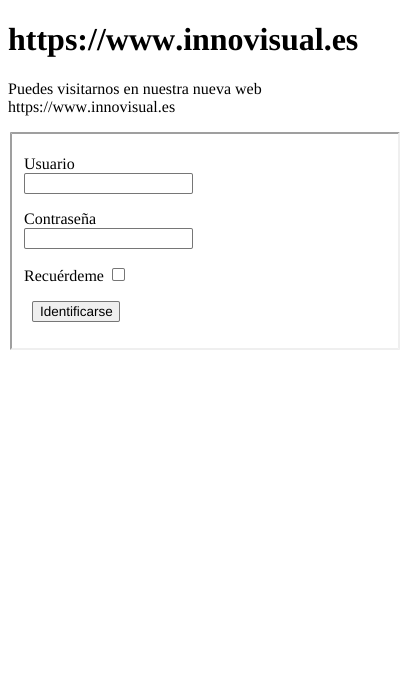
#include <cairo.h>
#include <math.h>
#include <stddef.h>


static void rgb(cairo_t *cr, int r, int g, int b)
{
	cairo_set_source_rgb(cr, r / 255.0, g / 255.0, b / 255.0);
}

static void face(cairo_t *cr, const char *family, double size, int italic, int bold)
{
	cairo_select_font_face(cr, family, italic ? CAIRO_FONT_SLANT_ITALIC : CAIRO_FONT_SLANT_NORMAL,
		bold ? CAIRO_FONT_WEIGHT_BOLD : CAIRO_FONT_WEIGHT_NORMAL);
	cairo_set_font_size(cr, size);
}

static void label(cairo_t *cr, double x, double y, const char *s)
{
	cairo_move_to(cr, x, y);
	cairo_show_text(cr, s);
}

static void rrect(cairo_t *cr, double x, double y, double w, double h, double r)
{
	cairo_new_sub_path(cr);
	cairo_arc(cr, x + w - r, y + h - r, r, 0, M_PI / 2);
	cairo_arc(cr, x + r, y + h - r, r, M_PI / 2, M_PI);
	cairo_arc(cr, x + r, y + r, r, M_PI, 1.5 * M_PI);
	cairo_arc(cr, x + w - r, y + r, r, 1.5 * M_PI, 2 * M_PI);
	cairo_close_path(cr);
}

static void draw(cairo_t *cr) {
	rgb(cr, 255, 255, 255);
	cairo_paint(cr);
	face(cr, "Liberation Serif", 32, 0, 1);
	rgb(cr, 0, 0, 0);
	label(cr, 8, 50, "https://www.innovisual.es");
	face(cr, "Liberation Serif", 16, 0, 0);
	label(cr, 8, 94, "Puedes visitarnos en nuestra nueva web");
	label(cr, 8, 112, "https://www.innovisual.es");
	rgb(cr, 159, 159, 159);
	cairo_new_path(cr);
	cairo_move_to(cr, 10, 132);
	cairo_line_to(cr, 400, 132);
	cairo_line_to(cr, 398, 134);
	cairo_line_to(cr, 12, 134);
	cairo_close_path(cr);
	cairo_fill(cr);
	rgb(cr, 239, 239, 239);
	cairo_new_path(cr);
	cairo_move_to(cr, 400, 132);
	cairo_line_to(cr, 400, 350);
	cairo_line_to(cr, 398, 348);
	cairo_line_to(cr, 398, 134);
	cairo_close_path(cr);
	cairo_fill(cr);
	cairo_new_path(cr);
	cairo_move_to(cr, 400, 350);
	cairo_line_to(cr, 10, 350);
	cairo_line_to(cr, 12, 348);
	cairo_line_to(cr, 398, 348);
	cairo_close_path(cr);
	cairo_fill(cr);
	rgb(cr, 159, 159, 159);
	cairo_new_path(cr);
	cairo_move_to(cr, 10, 350);
	cairo_line_to(cr, 10, 132);
	cairo_line_to(cr, 12, 134);
	cairo_line_to(cr, 12, 348);
	cairo_close_path(cr);
	cairo_fill(cr);
	rgb(cr, 0, 0, 0);
	label(cr, 24, 169, "Usuario");
	rrect(cr, 24.5, 173.5, 168, 20, 1.5);
	rgb(cr, 118, 118, 118);
	cairo_set_line_width(cr, 1);
	cairo_stroke(cr);
	rgb(cr, 0, 0, 0);
	label(cr, 24, 224, "Contraseña");
	rrect(cr, 24.5, 228.5, 168, 20, 1.5);
	rgb(cr, 118, 118, 118);
	cairo_stroke(cr);
	rgb(cr, 0, 0, 0);
	label(cr, 24, 281, "Recuérdeme");
	rrect(cr, 112.5, 268.5, 12, 12, 1.5);
	rgb(cr, 118, 118, 118);
	cairo_stroke(cr);
	rgb(cr, 239, 239, 239);
	rrect(cr, 32.5, 301.5, 87, 20, 1.5);
	cairo_fill_preserve(cr);
	rgb(cr, 118, 118, 118);
	cairo_stroke(cr);
	face(cr, "Liberation Sans", 13.5, 0, 0);
	rgb(cr, 0, 0, 0);
	label(cr, 40, 316, "Identificarse");
}

int main(void) {
	cairo_surface_t *surface = cairo_image_surface_create(CAIRO_FORMAT_RGB24, 410, 691);
	cairo_t *cr = cairo_create(surface);
	cairo_font_options_t *options = cairo_font_options_create();
	cairo_font_options_set_hint_metrics(options, CAIRO_HINT_METRICS_OFF);
	cairo_font_options_set_hint_style(options, CAIRO_HINT_STYLE_NONE);
	cairo_set_font_options(cr, options);
	cairo_set_miter_limit(cr, 4);
	draw(cr);
	cairo_surface_write_to_png(surface, "render.png");
	cairo_font_options_destroy(options);
	cairo_destroy(cr);
	cairo_surface_destroy(surface);
	return 0;
}
